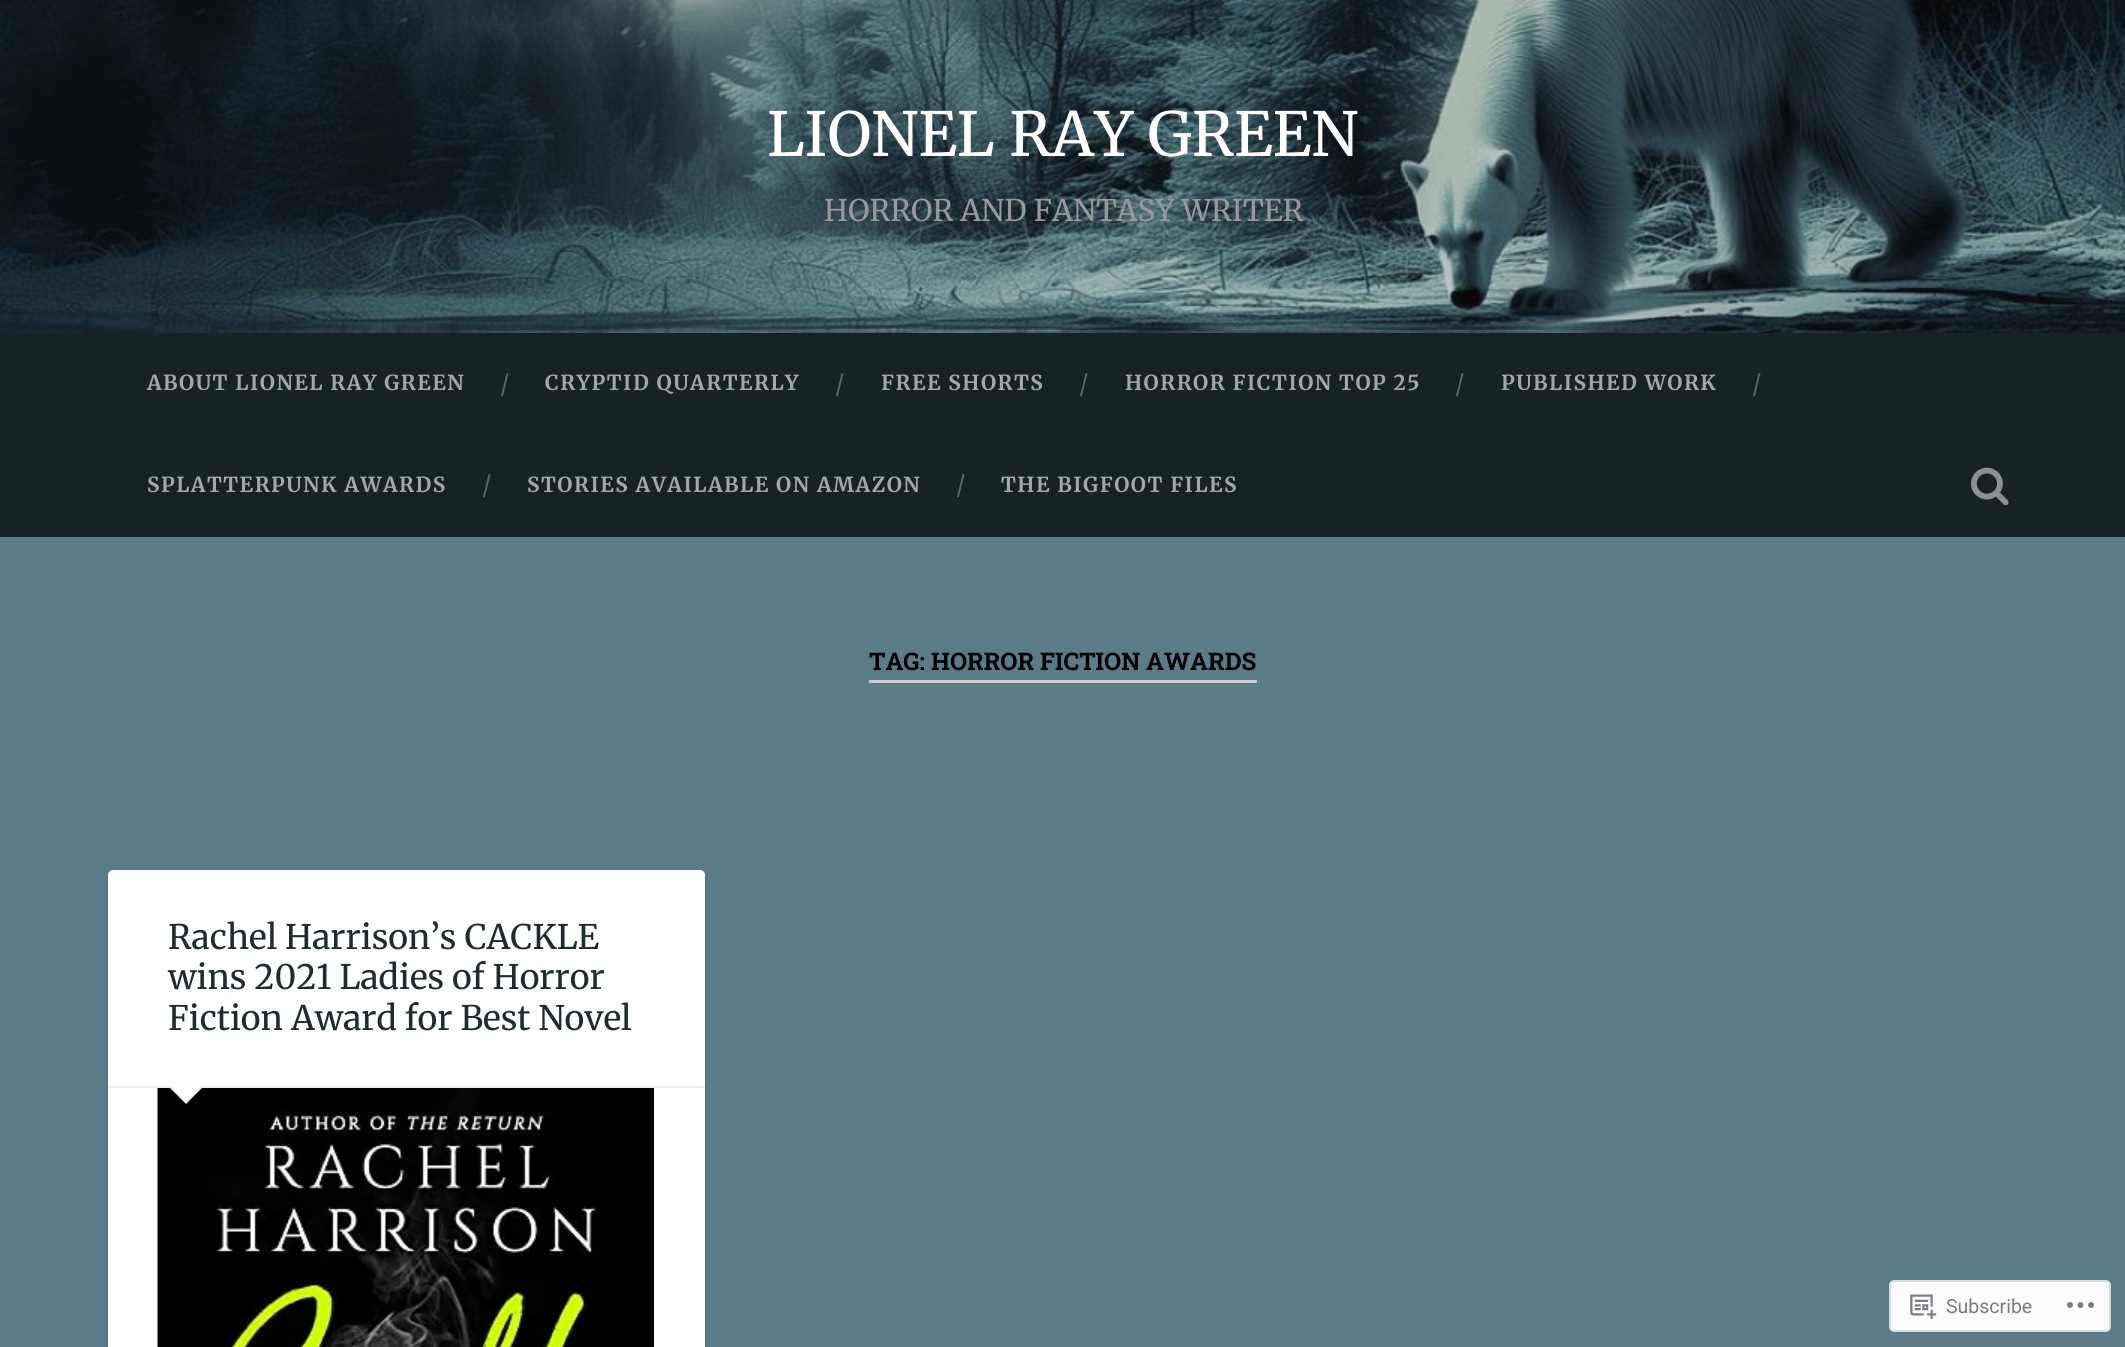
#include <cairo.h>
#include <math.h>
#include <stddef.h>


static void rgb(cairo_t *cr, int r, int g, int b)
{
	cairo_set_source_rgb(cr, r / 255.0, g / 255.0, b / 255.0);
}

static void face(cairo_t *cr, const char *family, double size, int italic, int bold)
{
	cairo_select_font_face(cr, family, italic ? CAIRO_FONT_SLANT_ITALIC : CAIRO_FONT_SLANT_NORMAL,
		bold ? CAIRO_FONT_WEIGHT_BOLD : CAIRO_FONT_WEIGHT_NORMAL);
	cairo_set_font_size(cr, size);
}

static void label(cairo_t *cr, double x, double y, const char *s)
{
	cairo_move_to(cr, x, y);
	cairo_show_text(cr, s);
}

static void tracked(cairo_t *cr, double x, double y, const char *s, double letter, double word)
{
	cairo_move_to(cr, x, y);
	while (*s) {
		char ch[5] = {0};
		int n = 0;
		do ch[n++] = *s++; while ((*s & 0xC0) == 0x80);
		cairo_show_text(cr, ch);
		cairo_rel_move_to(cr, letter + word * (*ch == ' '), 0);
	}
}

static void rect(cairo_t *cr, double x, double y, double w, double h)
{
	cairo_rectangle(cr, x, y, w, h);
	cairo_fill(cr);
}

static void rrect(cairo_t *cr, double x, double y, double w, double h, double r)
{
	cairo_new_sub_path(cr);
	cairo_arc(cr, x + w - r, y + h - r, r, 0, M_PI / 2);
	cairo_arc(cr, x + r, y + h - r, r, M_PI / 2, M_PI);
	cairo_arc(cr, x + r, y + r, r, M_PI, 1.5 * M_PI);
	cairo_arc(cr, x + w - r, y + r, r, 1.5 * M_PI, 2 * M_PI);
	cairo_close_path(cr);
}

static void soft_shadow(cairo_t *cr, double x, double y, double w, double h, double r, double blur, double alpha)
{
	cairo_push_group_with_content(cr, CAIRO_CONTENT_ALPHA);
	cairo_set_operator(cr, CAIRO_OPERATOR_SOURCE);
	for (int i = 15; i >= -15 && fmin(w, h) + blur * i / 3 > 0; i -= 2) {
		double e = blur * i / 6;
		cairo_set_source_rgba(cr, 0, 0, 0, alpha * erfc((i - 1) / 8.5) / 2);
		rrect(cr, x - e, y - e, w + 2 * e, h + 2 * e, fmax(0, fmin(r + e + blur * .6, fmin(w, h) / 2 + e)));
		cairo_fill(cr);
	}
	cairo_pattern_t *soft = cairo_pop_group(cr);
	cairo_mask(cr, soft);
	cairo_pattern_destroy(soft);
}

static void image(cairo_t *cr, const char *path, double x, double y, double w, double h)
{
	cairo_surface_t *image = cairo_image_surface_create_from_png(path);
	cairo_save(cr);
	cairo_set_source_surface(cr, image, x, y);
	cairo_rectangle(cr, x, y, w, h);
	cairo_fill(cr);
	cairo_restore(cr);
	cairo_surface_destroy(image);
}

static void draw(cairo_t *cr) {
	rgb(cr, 91, 123, 137);
	cairo_paint(cr);
	image(cr, "image0.png", 0, 0, 2125, 333);
	face(cr, "Merriweather", 60.75, 0, 0);
	rgb(cr, 255, 255, 255);
	label(cr, 767, 156, "LIONEL RAY GREEN");
	face(cr, "Merriweather", 29.75, 0, 0);
	rgb(cr, 153, 153, 153);
	label(cr, 824, 221, "HORROR AND FANTASY WRITER");
	rgb(cr, 23, 34, 37);
	rect(cr, 0, 333, 2125, 204);
	face(cr, "Merriweather", 20.7, 0, 1);
	rgb(cr, 162, 167, 168);
	tracked(cr, 147, 390, "ABOUT LIONEL RAY GREEN", 1.5, 0);
	face(cr, "Merriweather", 24, 0, 0);
	rgb(cr, 93, 100, 102);
	label(cr, 500, 392, "/");
	face(cr, "Merriweather", 20.7, 0, 1);
	rgb(cr, 162, 167, 168);
	tracked(cr, 545, 390, "CRYPTID QUARTERLY", 1.5, 0);
	face(cr, "Merriweather", 24, 0, 0);
	rgb(cr, 93, 100, 102);
	label(cr, 835, 392, "/");
	face(cr, "Merriweather", 20.7, 0, 1);
	rgb(cr, 162, 167, 168);
	tracked(cr, 881, 390, "FREE SHORTS", 1.5, 0);
	face(cr, "Merriweather", 24, 0, 0);
	rgb(cr, 93, 100, 102);
	label(cr, 1079, 392, "/");
	face(cr, "Merriweather", 20.7, 0, 1);
	rgb(cr, 162, 167, 168);
	tracked(cr, 1125, 390, "HORROR FICTION TOP 25", 1.5, 0);
	face(cr, "Merriweather", 24, 0, 0);
	rgb(cr, 93, 100, 102);
	label(cr, 1455, 392, "/");
	face(cr, "Merriweather", 20.7, 0, 1);
	rgb(cr, 162, 167, 168);
	tracked(cr, 1501, 390, "PUBLISHED WORK", 1.5, 0);
	face(cr, "Merriweather", 24, 0, 0);
	rgb(cr, 93, 100, 102);
	label(cr, 1752, 392, "/");
	face(cr, "Merriweather", 20.7, 0, 1);
	rgb(cr, 162, 167, 168);
	tracked(cr, 147, 492, "SPLATTERPUNK AWARDS", 1.5, 0);
	face(cr, "Merriweather", 24, 0, 0);
	rgb(cr, 93, 100, 102);
	label(cr, 482, 493, "/");
	face(cr, "Merriweather", 20.7, 0, 1);
	rgb(cr, 162, 167, 168);
	tracked(cr, 527, 492, "STORIES AVAILABLE ON AMAZON", 1.5, 0);
	face(cr, "Merriweather", 24, 0, 0);
	rgb(cr, 93, 100, 102);
	label(cr, 956, 493, "/");
	face(cr, "Merriweather", 20.7, 0, 1);
	rgb(cr, 162, 167, 168);
	tracked(cr, 1001, 492, "THE BIGFOOT FILES", 1.5, 0);
	image(cr, "image1.png", 1971, 467, 38, 39);
	rgb(cr, 204, 204, 204);
	rect(cr, 869, 680, 388, 3);
	face(cr, "Roboto Slab", 24.25, 0, 1);
	rgb(cr, 0, 0, 0);
	label(cr, 869, 670, "TAG: HORROR FICTION AWARDS");
	rgb(cr, 0, 0, 0);
	soft_shadow(cr, 108, 872, 597, 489, 5, 3, 0.1);
	rgb(cr, 255, 255, 255);
	rrect(cr, 108, 870, 597, 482, 5);
	cairo_fill(cr);
	rgb(cr, 238, 238, 238);
	rect(cr, 108, 1086, 597, 2);
	face(cr, "Merriweather", 33.75, 0, 0);
	rgb(cr, 30, 44, 48);
	label(cr, 168, 949, "Rachel Harrison’s CACKLE");
	label(cr, 168, 989, "wins 2021 Ladies of Horror");
	label(cr, 168, 1030, "Fiction Award for Best Novel");
	image(cr, "image2.png", 157, 1088, 497, 259);
	rgb(cr, 238, 238, 238);
	cairo_new_path(cr);
	cairo_move_to(cr, 168, 1086);
	cairo_line_to(cr, 204, 1086);
	cairo_line_to(cr, 186, 1104);
	cairo_close_path(cr);
	cairo_fill(cr);
	rgb(cr, 255, 255, 255);
	cairo_new_path(cr);
	cairo_move_to(cr, 169.5, 1084.5);
	cairo_line_to(cr, 202.5, 1084.5);
	cairo_line_to(cr, 186, 1101);
	cairo_close_path(cr);
	cairo_fill(cr);
	rgb(cr, 252, 252, 253);
	rrect(cr, 1890, 1281, 220, 50, 4);
	cairo_fill_preserve(cr);
	rgb(cr, 217, 218, 220);
	cairo_stroke(cr);
	image(cr, "image3.png", 1910, 1294, 27, 25);
	face(cr, "Roboto", 19.5, 0, 0);
	rgb(cr, 119, 124, 130);
	label(cr, 1946, 1313, "Subscribe");
	image(cr, "image4.png", 2067, 1302, 27, 6);
}

int main(void) {
	cairo_surface_t *surface = cairo_image_surface_create(CAIRO_FORMAT_RGB24, 2125, 1347);
	cairo_t *cr = cairo_create(surface);
	cairo_font_options_t *options = cairo_font_options_create();
	cairo_font_options_set_hint_metrics(options, CAIRO_HINT_METRICS_OFF);
	cairo_font_options_set_hint_style(options, CAIRO_HINT_STYLE_NONE);
	cairo_set_font_options(cr, options);
	cairo_set_miter_limit(cr, 4);
	draw(cr);
	cairo_surface_write_to_png(surface, "render.png");
	cairo_font_options_destroy(options);
	cairo_destroy(cr);
	cairo_surface_destroy(surface);
	return 0;
}
